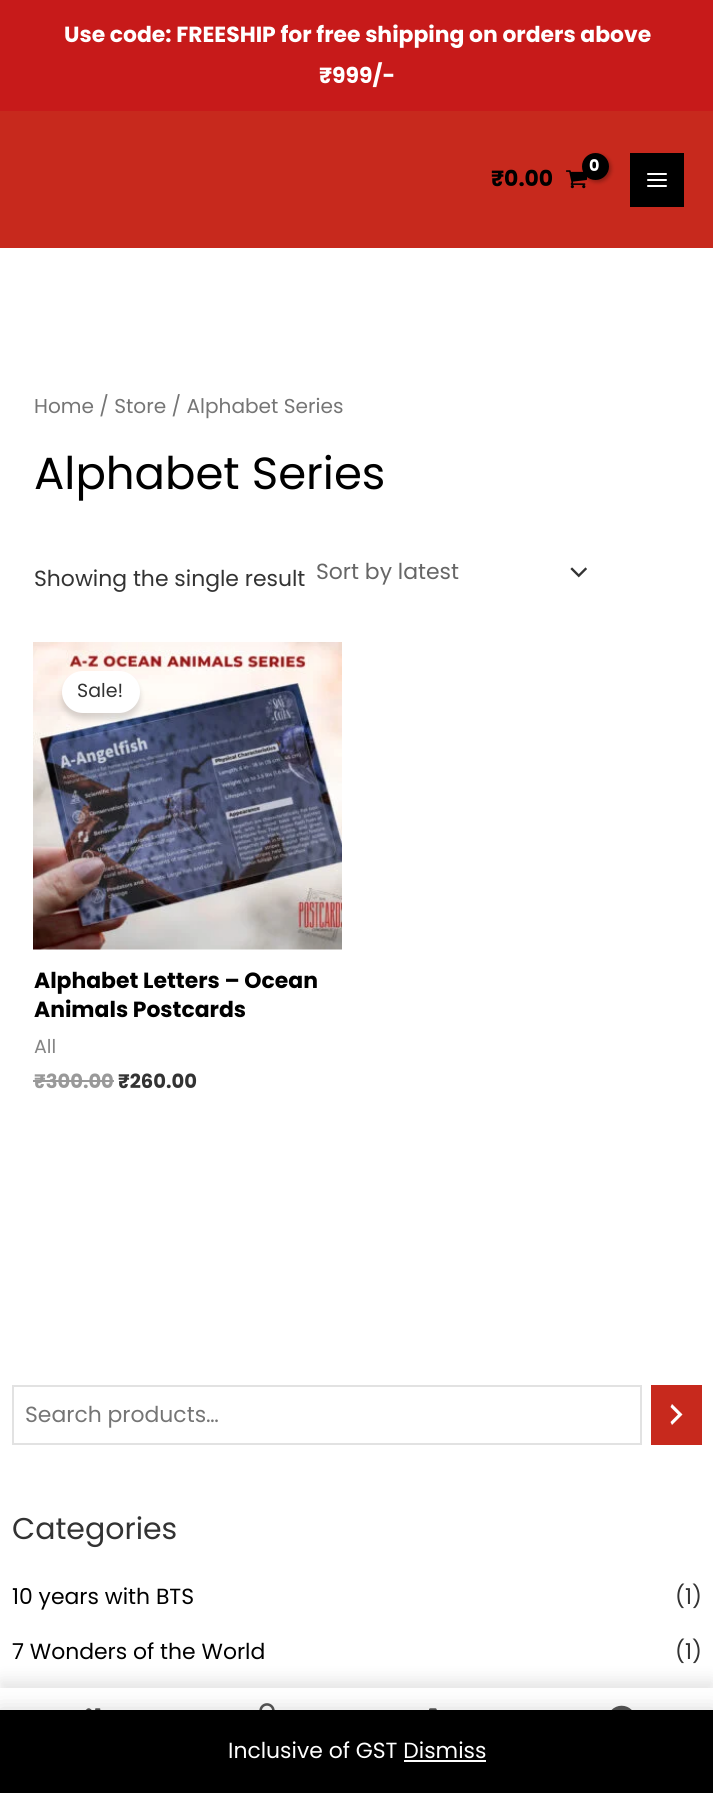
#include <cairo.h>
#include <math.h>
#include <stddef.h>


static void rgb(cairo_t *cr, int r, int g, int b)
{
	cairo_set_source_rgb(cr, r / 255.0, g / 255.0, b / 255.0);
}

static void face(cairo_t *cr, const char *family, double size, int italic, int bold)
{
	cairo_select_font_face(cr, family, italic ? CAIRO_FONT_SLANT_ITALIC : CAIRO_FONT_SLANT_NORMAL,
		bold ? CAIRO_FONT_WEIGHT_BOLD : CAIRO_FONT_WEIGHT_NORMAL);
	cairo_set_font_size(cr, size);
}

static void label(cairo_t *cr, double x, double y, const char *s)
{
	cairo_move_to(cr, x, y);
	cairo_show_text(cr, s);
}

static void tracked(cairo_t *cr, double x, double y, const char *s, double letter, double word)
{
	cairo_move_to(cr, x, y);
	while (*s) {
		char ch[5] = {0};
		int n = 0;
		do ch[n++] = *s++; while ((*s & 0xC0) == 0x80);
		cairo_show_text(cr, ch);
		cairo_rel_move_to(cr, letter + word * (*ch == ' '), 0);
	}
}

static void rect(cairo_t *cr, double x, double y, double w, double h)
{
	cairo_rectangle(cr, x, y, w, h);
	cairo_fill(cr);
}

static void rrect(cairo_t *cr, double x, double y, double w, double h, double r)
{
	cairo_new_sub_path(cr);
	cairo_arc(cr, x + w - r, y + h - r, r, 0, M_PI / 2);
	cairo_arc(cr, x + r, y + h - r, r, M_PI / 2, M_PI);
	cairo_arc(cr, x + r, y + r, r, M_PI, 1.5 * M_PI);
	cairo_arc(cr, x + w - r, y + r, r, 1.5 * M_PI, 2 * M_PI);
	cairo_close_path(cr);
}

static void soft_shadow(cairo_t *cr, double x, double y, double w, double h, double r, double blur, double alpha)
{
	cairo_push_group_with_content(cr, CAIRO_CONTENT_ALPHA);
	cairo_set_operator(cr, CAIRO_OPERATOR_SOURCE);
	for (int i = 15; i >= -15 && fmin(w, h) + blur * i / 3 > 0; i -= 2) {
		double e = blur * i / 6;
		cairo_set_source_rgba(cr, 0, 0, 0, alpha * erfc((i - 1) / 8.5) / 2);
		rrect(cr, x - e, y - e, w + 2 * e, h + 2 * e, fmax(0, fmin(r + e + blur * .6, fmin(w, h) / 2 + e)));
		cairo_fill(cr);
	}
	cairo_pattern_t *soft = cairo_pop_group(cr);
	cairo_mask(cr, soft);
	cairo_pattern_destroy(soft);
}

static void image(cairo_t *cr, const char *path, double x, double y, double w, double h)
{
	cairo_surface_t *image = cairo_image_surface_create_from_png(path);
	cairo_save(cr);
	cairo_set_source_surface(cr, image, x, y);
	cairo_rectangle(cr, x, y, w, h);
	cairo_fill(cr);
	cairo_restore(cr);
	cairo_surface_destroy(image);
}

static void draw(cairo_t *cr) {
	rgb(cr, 255, 255, 255);
	cairo_paint(cr);
	rgb(cr, 199, 26, 26);
	rect(cr, 0, 0, 713, 111);
	face(cr, "Poppins", 21.9, 0, 1);
	rgb(cr, 255, 255, 255);
	label(cr, 64, 42, "Use code: FREESHIP for free shipping on orders above");
	label(cr, 319, 83, "₹999/-");
	rgb(cr, 199, 41, 29);
	rect(cr, 0, 111, 713, 137);
	image(cr, "image0.png", 566, 170, 22, 19);
	rgb(cr, 0, 0, 0);
	soft_shadow(cr, 584, 155, 27, 27, 13.5, 2, 0.3);
	rgb(cr, 0, 0, 0);
	cairo_arc(cr, 595.5, 166.5, 13.5, 0, 2 * M_PI);
	cairo_fill(cr);
	face(cr, "Poppins", 16, 0, 1);
	rgb(cr, 255, 255, 255);
	tracked(cr, 589, 171, "0", -1, 0);
	face(cr, "Poppins", 21.9, 0, 1);
	rgb(cr, 0, 0, 0);
	label(cr, 491, 186, "₹0.00");
	rect(cr, 630, 153, 54, 54);
	image(cr, "image1.png", 647, 173, 20, 14);
	face(cr, "Poppins", 20.1, 0, 0);
	rgb(cr, 117, 117, 117);
	label(cr, 34, 413, "Home / Store / Alphabet Series");
	face(cr, "Poppins", 45, 0, 0);
	rgb(cr, 0, 0, 0);
	label(cr, 34, 489, "Alphabet Series");
	face(cr, "Poppins", 21.9, 0, 0);
	rgb(cr, 51, 51, 51);
	label(cr, 34, 586, "Showing the single result");
	image(cr, "image2.png", 570, 567, 17, 11);
	rgb(cr, 102, 102, 102);
	label(cr, 316, 579, "Sort by latest");
	image(cr, "image3.png", 33, 642, 309, 308);
	rgb(cr, 0, 0, 0);
	soft_shadow(cr, 62, 677, 78, 42, 21, 3, 0.15);
	rgb(cr, 255, 255, 255);
	rrect(cr, 62, 671, 78, 42, 21);
	cairo_fill(cr);
	face(cr, "Poppins", 19, 0, 0);
	rgb(cr, 51, 51, 51);
	label(cr, 77, 697, "Sale!");
	face(cr, "Poppins", 21.9, 0, 1);
	rgb(cr, 0, 0, 0);
	label(cr, 34, 988, "Alphabet Letters – Ocean");
	label(cr, 34, 1017, "Animals Postcards");
	face(cr, "Poppins", 19, 0, 0);
	rgb(cr, 133, 133, 133);
	label(cr, 34, 1053, "All");
	face(cr, "Poppins", 19.5, 0, 1);
	rgb(cr, 153, 153, 153);
	label(cr, 34, 1088, "₹300.00");
	rect(cr, 33, 1080, 81, 2);
	rgb(cr, 51, 51, 51);
	label(cr, 118, 1088, "₹260.00");
	cairo_rectangle(cr, 13, 1386, 628, 58);
	rgb(cr, 226, 226, 226);
	cairo_stroke(cr);
	face(cr, "Poppins", 21.9, 0, 0);
	rgb(cr, 117, 117, 117);
	label(cr, 25, 1422, "Search products…");
	rgb(cr, 199, 41, 29);
	rect(cr, 651, 1385, 51, 60);
	rgb(cr, 255, 255, 255);
	cairo_new_path(cr);
	cairo_move_to(cr, 670.5, 1422);
	cairo_line_to(cr, 678, 1414.5);
	cairo_line_to(cr, 670.5, 1407);
	cairo_line_to(cr, 672, 1404);
	cairo_line_to(cr, 682.5, 1414.5);
	cairo_line_to(cr, 672, 1425);
	cairo_close_path(cr);
	cairo_fill(cr);
	face(cr, "Poppins", 30, 0, 0);
	rgb(cr, 51, 51, 51);
	label(cr, 12, 1539, "Categories");
	face(cr, "Poppins", 21.9, 0, 0);
	rgb(cr, 0, 0, 0);
	label(cr, 12, 1604, "10 years with BTS");
	rgb(cr, 51, 51, 51);
	label(cr, 675, 1604, "(1)");
	rgb(cr, 0, 0, 0);
	label(cr, 12, 1659, "7 Wonders of the World");
	rgb(cr, 51, 51, 51);
	label(cr, 675, 1659, "(1)");
	rgb(cr, 0, 0, 0);
	soft_shadow(cr, 0, 1680, 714, 107, 0, 7.5, 0.1);
	rgb(cr, 255, 255, 255);
	rect(cr, 0, 1688, 713, 22);
	image(cr, "image4.png", 85, 1708, 16, 2);
	image(cr, "image5.png", 259, 1703, 16, 7);
	image(cr, "image6.png", 429, 1708, 8, 2);
	image(cr, "image7.png", 611, 1705, 21, 5);
	rgb(cr, 0, 0, 0);
	soft_shadow(cr, 0, 1712, 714, 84, 0, 11, 0.2);
	rgb(cr, 0, 0, 0);
	rect(cr, 0, 1710, 713, 83);
	rgb(cr, 255, 255, 255);
	label(cr, 228, 1758, "Inclusive of GST Dismiss");
	rect(cr, 404, 1760, 82, 2);
}

int main(void) {
	cairo_surface_t *surface = cairo_image_surface_create(CAIRO_FORMAT_RGB24, 713, 1793);
	cairo_t *cr = cairo_create(surface);
	cairo_font_options_t *options = cairo_font_options_create();
	cairo_font_options_set_hint_metrics(options, CAIRO_HINT_METRICS_OFF);
	cairo_font_options_set_hint_style(options, CAIRO_HINT_STYLE_NONE);
	cairo_set_font_options(cr, options);
	cairo_set_miter_limit(cr, 4);
	draw(cr);
	cairo_surface_write_to_png(surface, "render.png");
	cairo_font_options_destroy(options);
	cairo_destroy(cr);
	cairo_surface_destroy(surface);
	return 0;
}
